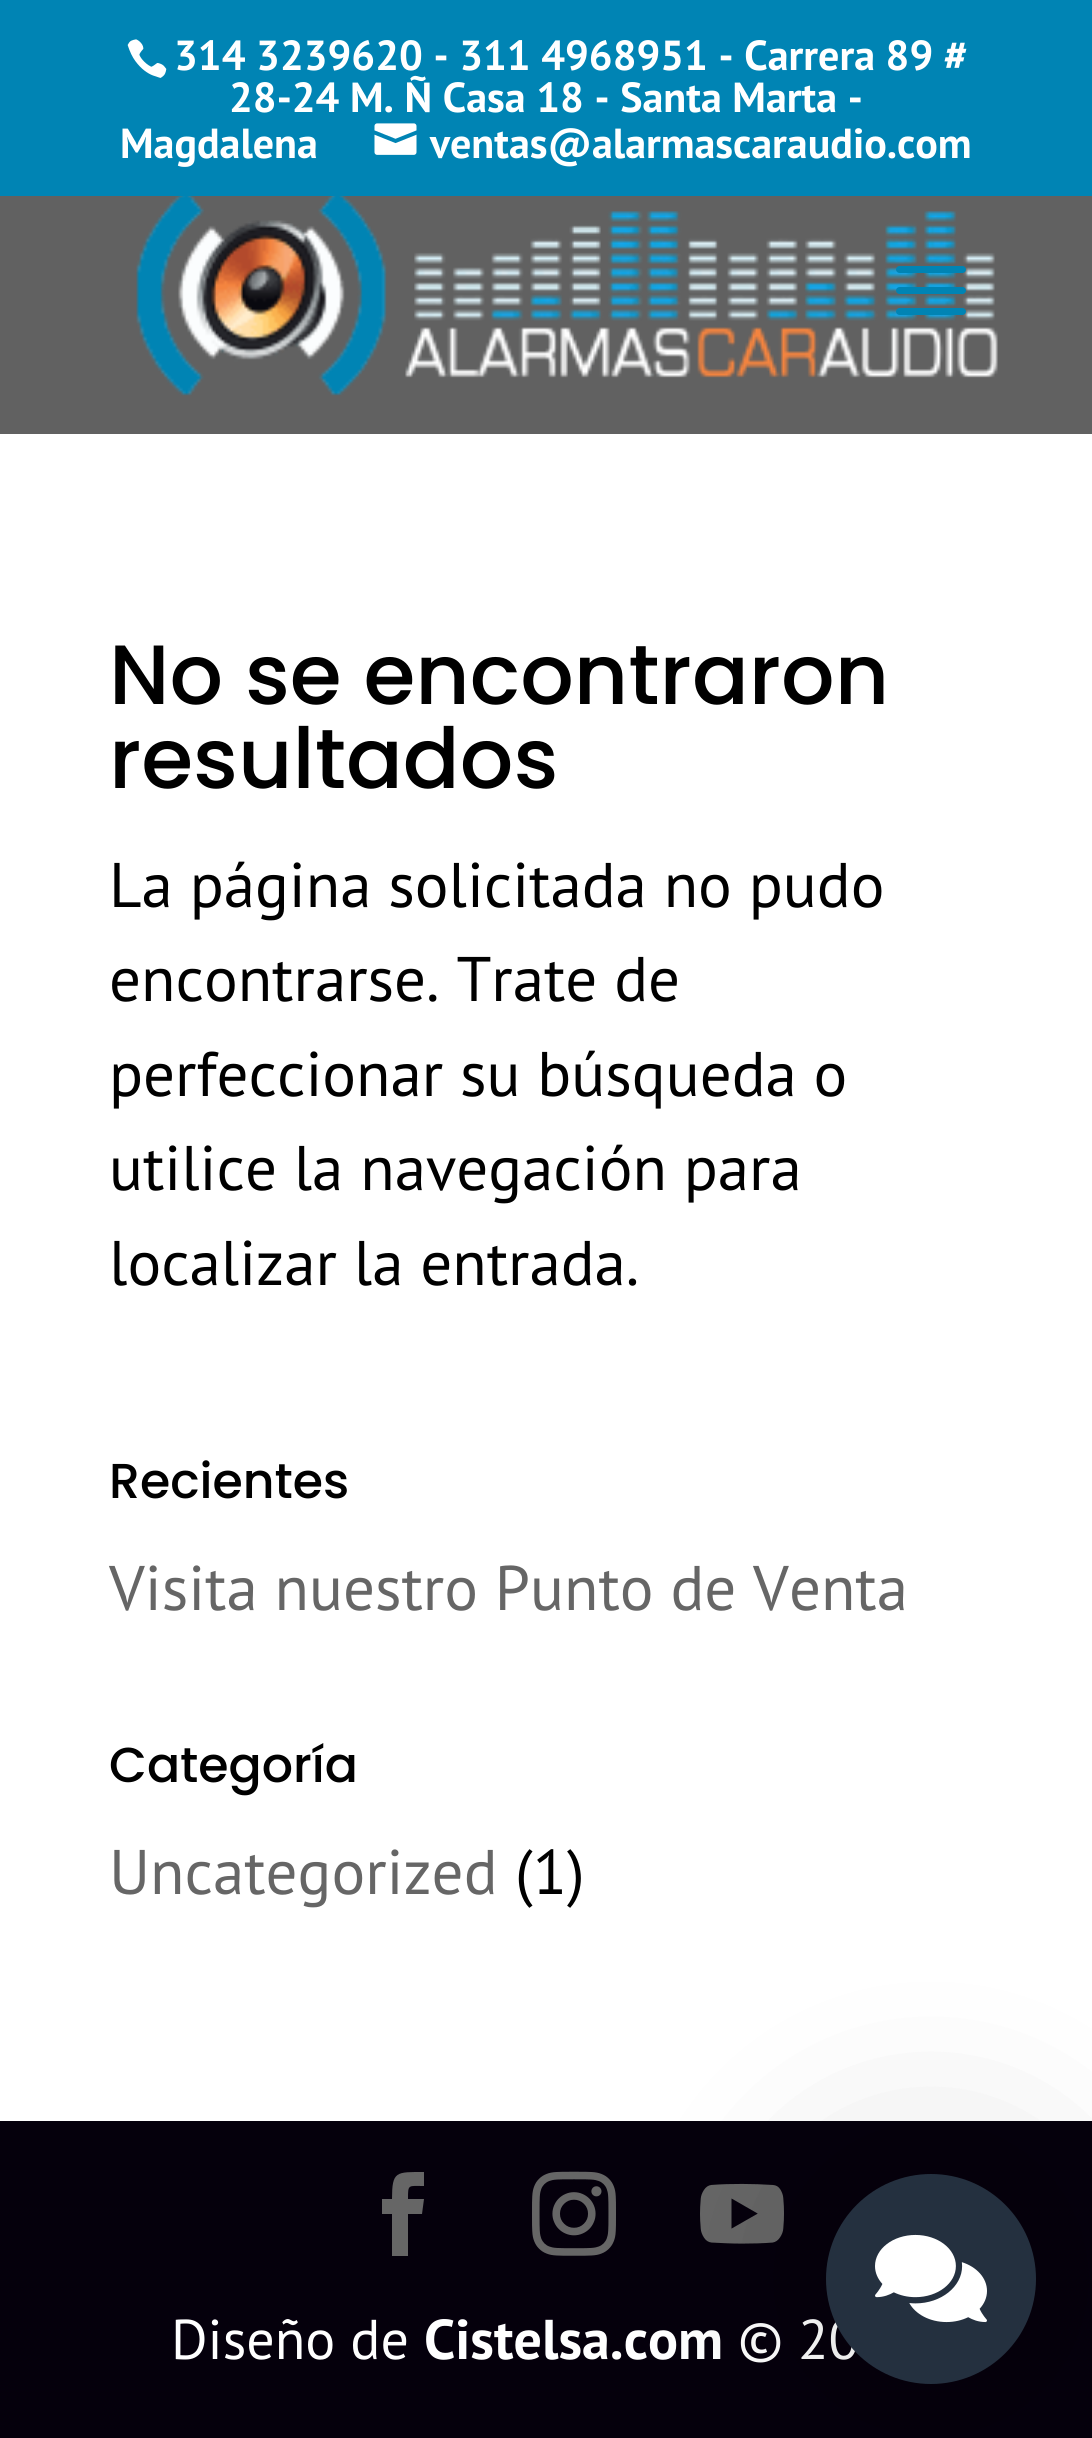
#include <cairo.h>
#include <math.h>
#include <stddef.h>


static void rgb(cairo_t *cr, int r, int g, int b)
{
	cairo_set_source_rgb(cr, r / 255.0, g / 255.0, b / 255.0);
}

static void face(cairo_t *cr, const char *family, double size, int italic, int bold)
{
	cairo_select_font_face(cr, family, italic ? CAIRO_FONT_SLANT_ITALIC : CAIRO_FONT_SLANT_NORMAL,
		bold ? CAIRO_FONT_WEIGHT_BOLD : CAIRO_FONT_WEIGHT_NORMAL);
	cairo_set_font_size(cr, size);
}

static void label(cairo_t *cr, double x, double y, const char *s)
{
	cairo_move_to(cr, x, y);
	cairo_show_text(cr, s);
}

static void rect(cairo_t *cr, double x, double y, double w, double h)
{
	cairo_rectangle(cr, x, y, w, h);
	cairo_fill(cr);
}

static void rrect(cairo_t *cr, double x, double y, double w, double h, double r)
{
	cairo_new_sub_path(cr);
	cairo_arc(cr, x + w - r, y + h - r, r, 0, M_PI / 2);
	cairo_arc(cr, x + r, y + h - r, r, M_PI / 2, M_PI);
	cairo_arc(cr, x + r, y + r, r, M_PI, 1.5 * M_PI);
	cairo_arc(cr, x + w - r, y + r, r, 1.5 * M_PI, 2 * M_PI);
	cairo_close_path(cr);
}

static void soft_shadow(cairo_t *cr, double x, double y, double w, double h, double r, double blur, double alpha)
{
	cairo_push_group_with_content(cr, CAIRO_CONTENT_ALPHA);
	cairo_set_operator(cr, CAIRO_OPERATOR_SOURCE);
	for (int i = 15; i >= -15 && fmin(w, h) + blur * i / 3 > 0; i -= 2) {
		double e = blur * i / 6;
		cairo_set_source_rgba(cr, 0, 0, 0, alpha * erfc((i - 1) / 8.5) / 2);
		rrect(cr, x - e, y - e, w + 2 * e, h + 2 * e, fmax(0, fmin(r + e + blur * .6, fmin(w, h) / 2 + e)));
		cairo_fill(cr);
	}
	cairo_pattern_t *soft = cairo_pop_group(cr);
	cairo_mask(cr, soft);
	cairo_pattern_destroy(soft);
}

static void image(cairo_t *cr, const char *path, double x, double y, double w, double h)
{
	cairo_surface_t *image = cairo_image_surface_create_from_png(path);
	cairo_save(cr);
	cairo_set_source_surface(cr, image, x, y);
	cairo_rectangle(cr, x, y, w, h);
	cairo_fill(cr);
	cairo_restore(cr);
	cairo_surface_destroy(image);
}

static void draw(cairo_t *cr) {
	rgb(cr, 255, 255, 255);
	cairo_paint(cr);
	rgb(cr, 0, 132, 180);
	rect(cr, 0, 0, 1092, 196);
	image(cr, "image0.png", 127, 39, 40, 39);
	face(cr, "PT Sans", 42, 0, 1);
	rgb(cr, 255, 255, 255);
	label(cr, 174, 70, "314 3239620 - 311 4968951 - Carrera 89 #");
	label(cr, 229, 112, "28-24 M. Ñ Casa 18 - Santa Marta -");
	label(cr, 120, 158, "Magdalena");
	image(cr, "image1.png", 374, 123, 43, 32);
	label(cr, 430, 158, "ventas@alarmascaraudio.com");
	rgb(cr, 97, 97, 97);
	rect(cr, 0, 196, 1092, 238);
	image(cr, "image2.png", 136, 196, 862, 200);
	image(cr, "image3.png", 896, 266, 70, 49);
	face(cr, "Poppins Medium", 84, 0, 0);
	rgb(cr, 0, 0, 0);
	label(cr, 109, 704, "No se encontraron");
	label(cr, 109, 788, "resultados");
	face(cr, "PT Sans", 63, 0, 0);
	label(cr, 109, 907, "La página solicitada no pudo");
	label(cr, 109, 1001, "encontrarse. Trate de");
	label(cr, 109, 1096, "perfeccionar su búsqueda o");
	label(cr, 109, 1190, "utilice la navegación para");
	label(cr, 109, 1285, "localizar la entrada.");
	face(cr, "Poppins Medium", 49, 0, 0);
	label(cr, 109, 1498, "Recientes");
	face(cr, "PT Sans", 63, 0, 0);
	rgb(cr, 102, 102, 102);
	label(cr, 109, 1610, "Visita nuestro Punto de Venta");
	face(cr, "Poppins Medium", 49, 0, 0);
	rgb(cr, 0, 0, 0);
	label(cr, 109, 1782, "Categoría");
	face(cr, "PT Sans", 63, 0, 0);
	rgb(cr, 102, 102, 102);
	label(cr, 109, 1894, "Uncategorized");
	rgb(cr, 0, 0, 0);
	label(cr, 515, 1894, "(1)");
	rgb(cr, 5, 0, 12);
	rect(cr, 0, 2121, 1092, 317);
	rgb(cr, 102, 102, 102);
	cairo_new_path(cr);
	cairo_move_to(cr, 392, 2256);
	cairo_line_to(cr, 408, 2256);
	cairo_line_to(cr, 408, 2214);
	cairo_line_to(cr, 422, 2214);
	cairo_line_to(cr, 424, 2199);
	cairo_line_to(cr, 408, 2199);
	cairo_curve_to(cr, 408, 2184, 408, 2186, 424, 2186);
	cairo_line_to(cr, 424, 2172);
	cairo_curve_to(cr, 396, 2172, 392, 2171, 392, 2199);
	cairo_line_to(cr, 382, 2199);
	cairo_line_to(cr, 382, 2214);
	cairo_line_to(cr, 392, 2214);
	cairo_close_path(cr);
	cairo_fill(cr);
	image(cr, "image4.png", 532, 2171, 84, 85);
	image(cr, "image5.png", 700, 2183, 84, 61);
	face(cr, "PT Sans", 56, 0, 0);
	rgb(cr, 255, 255, 255);
	label(cr, 171, 2359, "Diseño de");
	face(cr, "PT Sans", 56, 0, 1);
	label(cr, 424, 2359, "Cistelsa.com");
	face(cr, "PT Sans", 56, 0, 0);
	label(cr, 738, 2359, "© 20");
	rgb(cr, 0, 0, 0);
	soft_shadow(cr, 826, 2174, 210, 210, 105, 105, 0.15);
	rgb(cr, 36, 48, 63);
	cairo_arc(cr, 931, 2279, 105, 0, 2 * M_PI);
	cairo_fill(cr);
	image(cr, "image6.png", 875, 2234, 112, 89);
}

int main(void) {
	cairo_surface_t *surface = cairo_image_surface_create(CAIRO_FORMAT_RGB24, 1092, 2438);
	cairo_t *cr = cairo_create(surface);
	cairo_font_options_t *options = cairo_font_options_create();
	cairo_font_options_set_hint_metrics(options, CAIRO_HINT_METRICS_OFF);
	cairo_font_options_set_hint_style(options, CAIRO_HINT_STYLE_NONE);
	cairo_set_font_options(cr, options);
	cairo_set_miter_limit(cr, 4);
	draw(cr);
	cairo_surface_write_to_png(surface, "render.png");
	cairo_font_options_destroy(options);
	cairo_destroy(cr);
	cairo_surface_destroy(surface);
	return 0;
}
